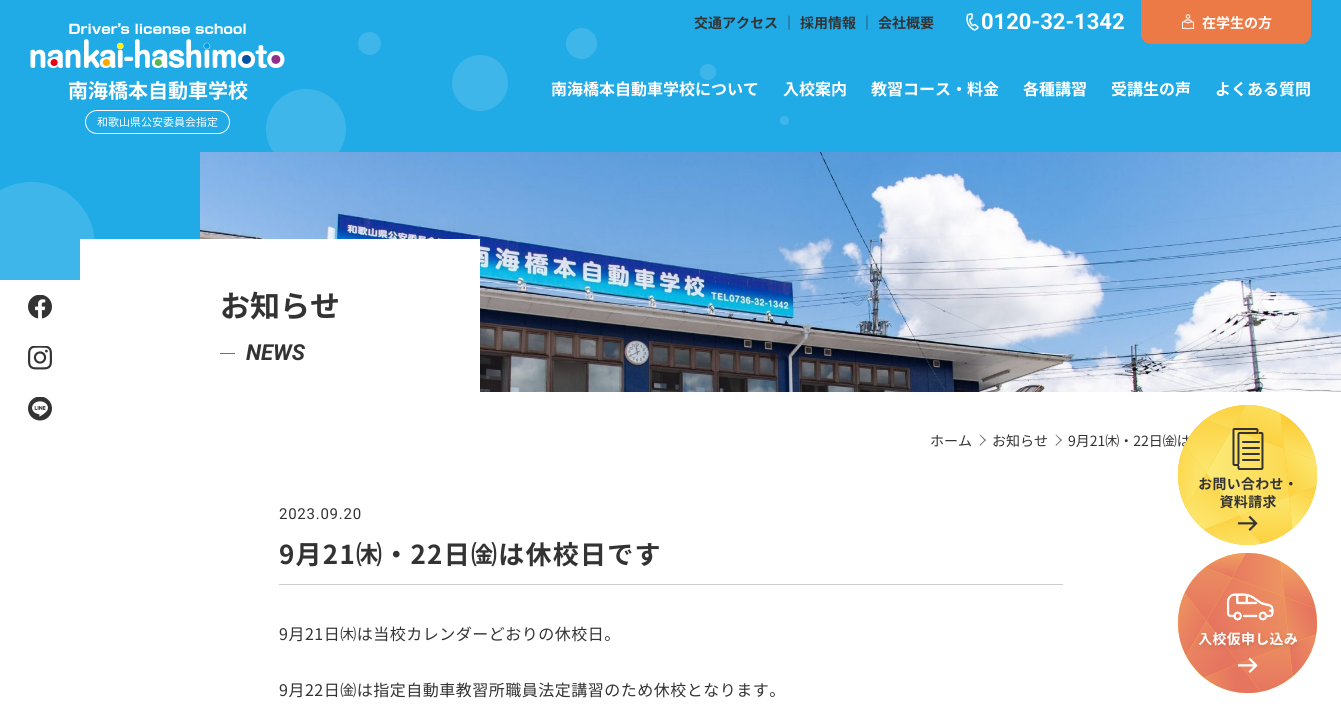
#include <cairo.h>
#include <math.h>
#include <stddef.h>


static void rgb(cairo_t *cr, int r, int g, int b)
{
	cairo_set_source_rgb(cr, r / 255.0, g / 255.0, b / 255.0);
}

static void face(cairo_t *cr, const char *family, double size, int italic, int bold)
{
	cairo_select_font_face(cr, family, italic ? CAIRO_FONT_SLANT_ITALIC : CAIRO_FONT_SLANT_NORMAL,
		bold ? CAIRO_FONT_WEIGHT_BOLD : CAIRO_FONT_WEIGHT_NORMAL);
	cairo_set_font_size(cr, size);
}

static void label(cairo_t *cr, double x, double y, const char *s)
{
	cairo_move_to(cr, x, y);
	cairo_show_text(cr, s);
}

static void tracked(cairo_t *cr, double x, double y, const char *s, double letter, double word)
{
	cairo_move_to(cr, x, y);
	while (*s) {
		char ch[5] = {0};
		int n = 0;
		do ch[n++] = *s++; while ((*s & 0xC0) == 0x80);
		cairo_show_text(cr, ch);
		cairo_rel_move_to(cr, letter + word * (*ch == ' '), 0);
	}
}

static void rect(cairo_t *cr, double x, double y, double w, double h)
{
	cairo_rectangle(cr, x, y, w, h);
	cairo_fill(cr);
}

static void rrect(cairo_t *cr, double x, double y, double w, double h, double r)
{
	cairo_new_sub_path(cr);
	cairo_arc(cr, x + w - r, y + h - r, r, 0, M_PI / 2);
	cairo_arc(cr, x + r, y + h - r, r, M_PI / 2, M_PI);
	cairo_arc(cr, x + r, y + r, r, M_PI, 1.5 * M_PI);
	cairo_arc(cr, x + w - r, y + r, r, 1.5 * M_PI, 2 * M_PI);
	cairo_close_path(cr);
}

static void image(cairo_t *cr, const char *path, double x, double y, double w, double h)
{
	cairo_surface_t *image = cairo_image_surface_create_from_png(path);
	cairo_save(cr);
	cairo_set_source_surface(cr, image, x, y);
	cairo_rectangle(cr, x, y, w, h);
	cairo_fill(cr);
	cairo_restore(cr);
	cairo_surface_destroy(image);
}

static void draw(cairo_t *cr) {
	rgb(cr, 255, 255, 255);
	cairo_paint(cr);
	image(cr, "image0.png", 28, 295, 24, 24);
	image(cr, "image1.png", 28, 346, 24, 24);
	image(cr, "image2.png", 28, 397, 24, 24);
	rgb(cr, 32, 170, 230);
	rect(cr, 0, 0, 1341, 239);
	cairo_save(cr);
	cairo_rectangle(cr, 0, 0, 1341, 280);
	cairo_clip(cr);
	rgb(cr, 63, 182, 234);
	cairo_arc(cr, 31.5, 245.5, 63.5, 0, 2 * M_PI);
	cairo_fill(cr);
	cairo_restore(cr);
	rgb(cr, 63, 182, 234);
	cairo_arc(cr, 306, 129, 40, 0, 2 * M_PI);
	cairo_fill(cr);
	cairo_arc(cr, 369.5, 43.5, 11.5, 0, 2 * M_PI);
	cairo_fill(cr);
	cairo_arc(cr, 480, 83, 28, 0, 2 * M_PI);
	cairo_fill(cr);
	cairo_arc(cr, 581.5, 43.5, 15.5, 0, 2 * M_PI);
	cairo_fill(cr);
	cairo_arc(cr, 708, 72, 8, 0, 2 * M_PI);
	cairo_fill(cr);
	cairo_arc(cr, 784.5, 120.5, 4.5, 0, 2 * M_PI);
	cairo_fill(cr);
	face(cr, "Noto Sans JP", 14, 0, 1);
	rgb(cr, 51, 51, 51);
	label(cr, 694, 28, "交通アクセス");
	label(cr, 782, 28, "｜");
	label(cr, 800, 28, "採用情報");
	label(cr, 860, 28, "｜");
	label(cr, 878, 28, "会社概要");
	image(cr, "image3.png", 966, 13, 13, 18);
	face(cr, "Roboto", 22, 0, 1);
	rgb(cr, 255, 255, 255);
	label(cr, 981, 29, "0120-32-1342");
	rgb(cr, 235, 122, 71);
	cairo_new_path(cr);
	cairo_move_to(cr, 1141, 0);
	cairo_line_to(cr, 1311, 0);
	cairo_line_to(cr, 1311, 34);
	cairo_curve_to(cr, 1311, 39.5, 1306.5, 44, 1301, 44);
	cairo_line_to(cr, 1151, 44);
	cairo_curve_to(cr, 1145.5, 44, 1141, 39.5, 1141, 34);
	cairo_close_path(cr);
	cairo_fill(cr);
	image(cr, "image4.png", 1182, 14, 12, 16);
	face(cr, "Noto Sans JP", 14, 0, 1);
	rgb(cr, 255, 255, 255);
	label(cr, 1202, 28, "在学生の方");
	face(cr, "Noto Sans JP", 16, 0, 1);
	label(cr, 551, 95, "南海橋本自動車学校について");
	label(cr, 783, 95, "入校案内");
	label(cr, 871, 95, "教習コース・料金");
	label(cr, 1023, 95, "各種講習");
	label(cr, 1111, 95, "受講生の声");
	label(cr, 1215, 95, "よくある質問");
	image(cr, "image5.png", 30, 23, 255, 45);
	face(cr, "Noto Sans JP", 20, 0, 1);
	label(cr, 68, 98, "南海橋本自動車学校");
	rrect(cr, 85.5, 110.5, 144, 23, 11.5);
	cairo_set_line_width(cr, 1);
	cairo_stroke(cr);
	face(cr, "Noto Sans JP", 11, 0, 0);
	label(cr, 97, 126, "和歌山県公安委員会指定");
	image(cr, "image6.png", 200, 152, 1141, 240);
	rect(cr, 80, 239, 400, 153);
	face(cr, "Noto Sans JP", 30, 0, 1);
	rgb(cr, 51, 51, 51);
	label(cr, 220, 317, "お知らせ");
	rgb(cr, 112, 112, 112);
	rect(cr, 220, 353, 15, 1);
	face(cr, "Roboto", 22, 1, 1);
	rgb(cr, 51, 51, 51);
	label(cr, 246, 360, "NEWS");
	face(cr, "Noto Sans JP", 14, 0, 0);
	label(cr, 930, 446, "ホーム");
	rgb(cr, 124, 124, 124);
	cairo_new_path(cr);
	cairo_move_to(cr, 980, 434.5);
	cairo_line_to(cr, 986, 440);
	cairo_line_to(cr, 985, 441);
	cairo_line_to(cr, 979.5, 435);
	cairo_close_path(cr);
	cairo_fill(cr);
	cairo_new_path(cr);
	cairo_move_to(cr, 985, 439.5);
	cairo_line_to(cr, 986, 440);
	cairo_line_to(cr, 980, 446);
	cairo_line_to(cr, 979.5, 445);
	cairo_close_path(cr);
	cairo_fill(cr);
	rgb(cr, 51, 51, 51);
	label(cr, 992, 446, "お知らせ");
	rgb(cr, 124, 124, 124);
	cairo_new_path(cr);
	cairo_move_to(cr, 1056, 434.5);
	cairo_line_to(cr, 1062, 440);
	cairo_line_to(cr, 1061, 441);
	cairo_line_to(cr, 1055.5, 435);
	cairo_close_path(cr);
	cairo_fill(cr);
	cairo_new_path(cr);
	cairo_move_to(cr, 1061, 439.5);
	cairo_line_to(cr, 1062, 440);
	cairo_line_to(cr, 1056, 446);
	cairo_line_to(cr, 1055.5, 445);
	cairo_close_path(cr);
	cairo_fill(cr);
	rgb(cr, 51, 51, 51);
	label(cr, 1068, 446, "9月21㈭・22日㈮は");
	rgb(cr, 204, 204, 204);
	rect(cr, 279, 584, 784, 1);
	face(cr, "Roboto", 15, 0, 0);
	rgb(cr, 51, 51, 51);
	tracked(cr, 279, 519, "2023.09.20", 0.75, 0);
	face(cr, "Noto Sans JP", 26, 0, 1);
	tracked(cr, 279, 564, "9月21㈭・22日㈮は休校日です", 1.25, 0);
	face(cr, "Noto Sans JP", 16, 0, 0);
	tracked(cr, 279, 640, "9月21日㈭は当校カレンダーどおりの休校日。", 0.5, 0);
	tracked(cr, 279, 696, "9月22日㈮は指定自動車教習所職員法定講習のため休校となります。", 0.5, 0);
	image(cr, "image7.png", 1178, 405, 139, 140);
	image(cr, "image8.png", 1178, 553, 139, 140);
}

int main(void) {
	cairo_surface_t *surface = cairo_image_surface_create(CAIRO_FORMAT_RGB24, 1341, 717);
	cairo_t *cr = cairo_create(surface);
	cairo_font_options_t *options = cairo_font_options_create();
	cairo_font_options_set_hint_metrics(options, CAIRO_HINT_METRICS_OFF);
	cairo_font_options_set_hint_style(options, CAIRO_HINT_STYLE_NONE);
	cairo_set_font_options(cr, options);
	cairo_set_miter_limit(cr, 4);
	draw(cr);
	cairo_surface_write_to_png(surface, "render.png");
	cairo_font_options_destroy(options);
	cairo_destroy(cr);
	cairo_surface_destroy(surface);
	return 0;
}
